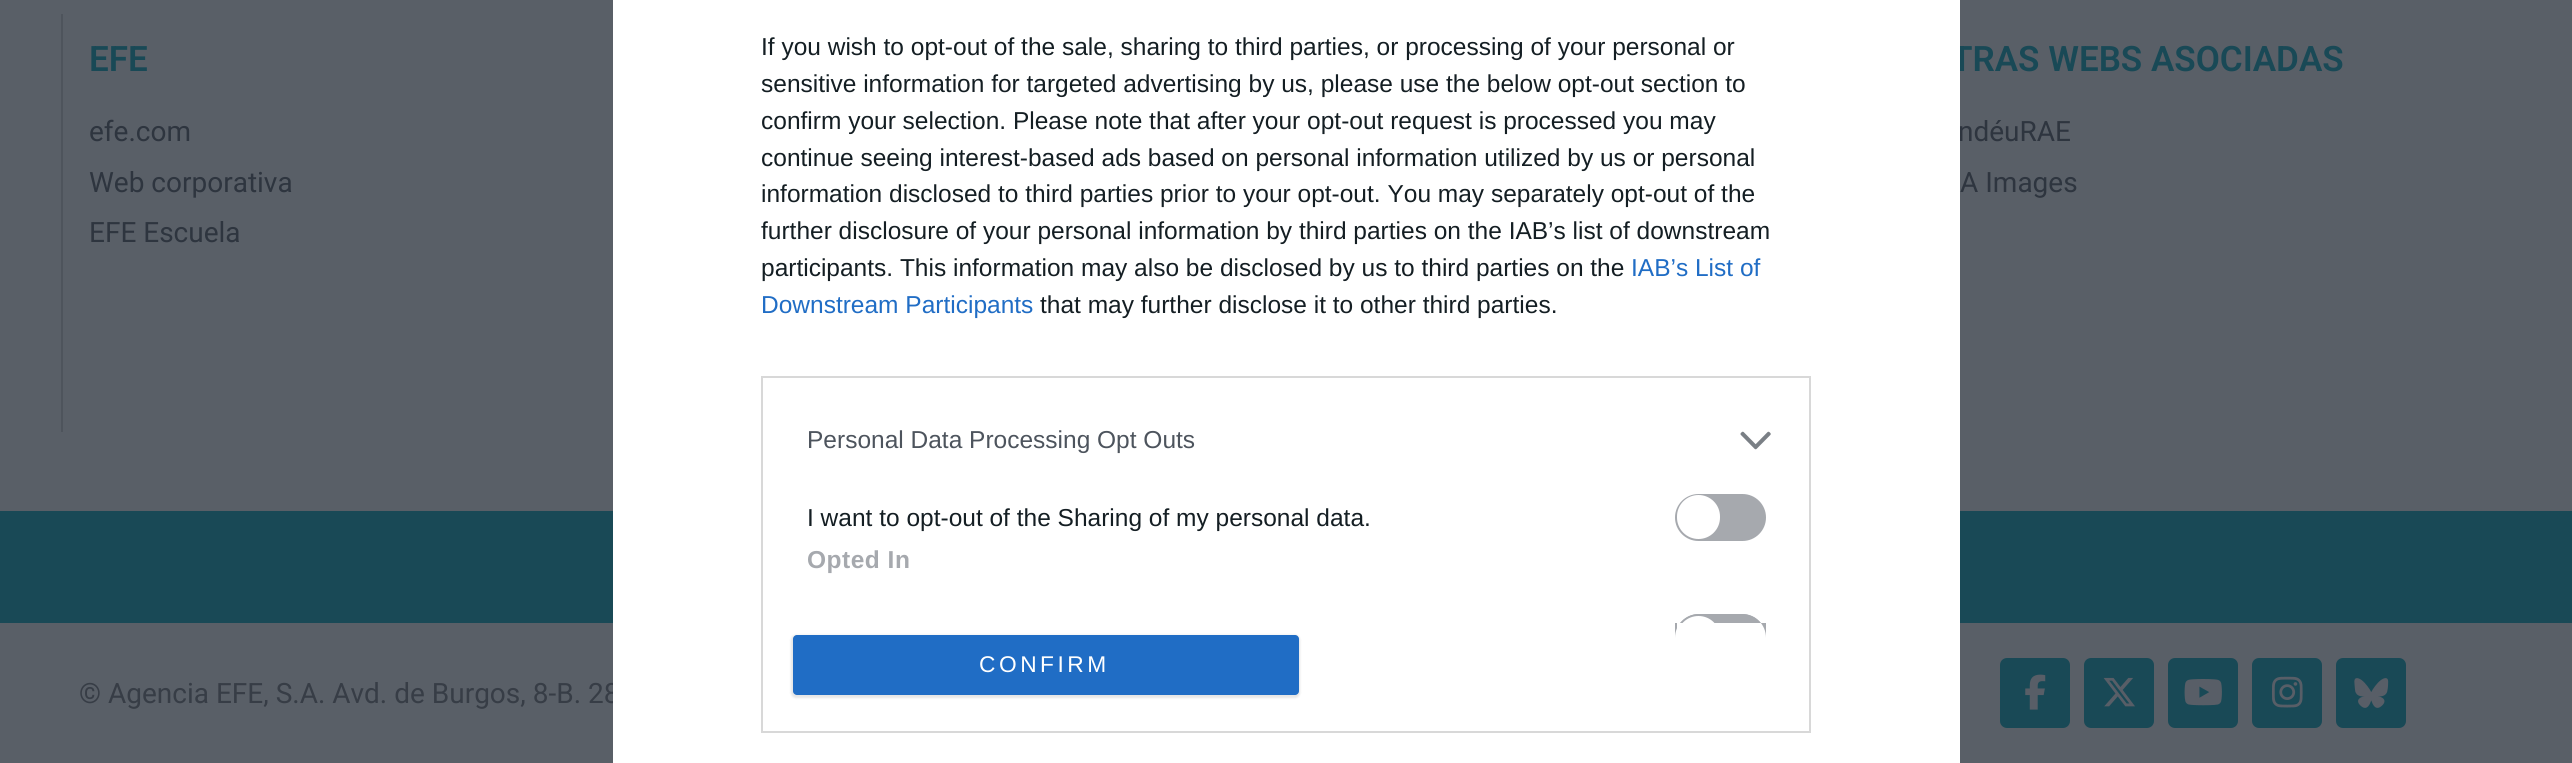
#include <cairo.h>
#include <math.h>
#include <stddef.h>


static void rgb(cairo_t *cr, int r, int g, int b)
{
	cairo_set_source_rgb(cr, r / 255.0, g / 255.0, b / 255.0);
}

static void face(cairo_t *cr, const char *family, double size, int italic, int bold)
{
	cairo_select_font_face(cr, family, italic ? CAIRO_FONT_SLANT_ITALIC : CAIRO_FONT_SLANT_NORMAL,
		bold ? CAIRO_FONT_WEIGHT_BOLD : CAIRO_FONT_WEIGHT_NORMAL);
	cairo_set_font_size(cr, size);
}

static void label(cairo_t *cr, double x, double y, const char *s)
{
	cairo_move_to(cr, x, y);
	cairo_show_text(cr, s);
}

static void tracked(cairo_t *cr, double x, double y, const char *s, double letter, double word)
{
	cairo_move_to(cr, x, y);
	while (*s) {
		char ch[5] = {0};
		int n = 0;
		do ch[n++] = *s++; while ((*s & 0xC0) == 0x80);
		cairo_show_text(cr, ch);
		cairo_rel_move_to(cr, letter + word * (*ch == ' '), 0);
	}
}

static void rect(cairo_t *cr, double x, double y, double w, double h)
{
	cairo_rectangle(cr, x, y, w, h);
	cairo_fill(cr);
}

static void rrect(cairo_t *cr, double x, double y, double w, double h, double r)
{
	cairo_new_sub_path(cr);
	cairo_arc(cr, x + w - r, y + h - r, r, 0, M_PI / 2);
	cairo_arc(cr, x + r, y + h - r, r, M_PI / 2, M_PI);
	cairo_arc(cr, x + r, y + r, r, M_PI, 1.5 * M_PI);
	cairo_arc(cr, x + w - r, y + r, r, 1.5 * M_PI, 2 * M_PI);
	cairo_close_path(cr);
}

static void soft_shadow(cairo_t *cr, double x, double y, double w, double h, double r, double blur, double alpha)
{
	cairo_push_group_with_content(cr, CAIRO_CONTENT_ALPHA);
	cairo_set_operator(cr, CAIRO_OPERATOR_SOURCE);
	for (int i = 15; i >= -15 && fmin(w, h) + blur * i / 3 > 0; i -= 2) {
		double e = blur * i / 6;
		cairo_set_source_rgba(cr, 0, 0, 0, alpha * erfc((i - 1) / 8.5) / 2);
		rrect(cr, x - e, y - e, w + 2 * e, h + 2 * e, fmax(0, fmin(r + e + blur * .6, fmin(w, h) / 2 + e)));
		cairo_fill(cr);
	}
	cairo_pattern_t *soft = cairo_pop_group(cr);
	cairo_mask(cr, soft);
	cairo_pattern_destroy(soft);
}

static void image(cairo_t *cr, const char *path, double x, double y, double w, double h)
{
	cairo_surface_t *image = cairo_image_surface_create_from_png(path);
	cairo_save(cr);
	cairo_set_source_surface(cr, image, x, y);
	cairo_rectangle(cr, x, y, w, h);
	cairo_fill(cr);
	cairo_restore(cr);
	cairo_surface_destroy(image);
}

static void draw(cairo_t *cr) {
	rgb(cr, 89, 95, 103);
	cairo_paint(cr);
	face(cr, "Roboto SemiBold", 35, 0, 0);
	rgb(cr, 25, 73, 86);
	label(cr, 1951, 71, "TRAS WEBS ASOCIADAS");
	face(cr, "Roboto", 28, 0, 0);
	rgb(cr, 46, 53, 63);
	label(cr, 1958, 141, "ndéuRAE");
	rgb(cr, 25, 73, 86);
	rect(cr, 0, 511, 2572, 112);
	rgb(cr, 55, 61, 70);
	label(cr, 79, 703, "© Agencia EFE, S.A. Avd. de Burgos, 8-B. 28");
	rgb(cr, 255, 255, 255);
	rect(cr, 613, 0, 1347, 763);
	face(cr, "Liberation Sans", 24.5, 0, 0);
	rgb(cr, 20, 30, 35);
	label(cr, 761, 55, "If you wish to opt-out of the sale, sharing to third parties, or processing of your personal or");
	label(cr, 761, 92, "sensitive information for targeted advertising by us, please use the below opt-out section to");
	label(cr, 761, 129, "confirm your selection. Please note that after your opt-out request is processed you may");
	label(cr, 761, 166, "continue seeing interest-based ads based on personal information utilized by us or personal");
	label(cr, 761, 202, "information disclosed to third parties prior to your opt-out. You may separately opt-out of the");
	label(cr, 761, 239, "further disclosure of your personal information by third parties on the IAB’s list of downstream");
	label(cr, 761, 276, "participants. This information may also be disclosed by us to third parties on the");
	rgb(cr, 32, 109, 197);
	label(cr, 1631, 276, "IAB’s List of");
	label(cr, 761, 313, "Downstream Participants");
	rgb(cr, 20, 30, 35);
	label(cr, 1040, 313, "that may further disclose it to other third parties.");
	cairo_rectangle(cr, 762, 377, 1048, 355);
	rgb(cr, 216, 216, 216);
	cairo_stroke(cr);
	rgb(cr, 77, 84, 93);
	label(cr, 807, 448, "Personal Data Processing Opt Outs");
	image(cr, "image0.png", 1740, 431, 31, 19);
	rgb(cr, 20, 30, 35);
	label(cr, 807, 526, "I want to opt-out of the Sharing of my personal data.");
	rgb(cr, 166, 169, 174);
	rrect(cr, 1676, 495, 89, 45, 22.5);
	cairo_fill_preserve(cr);
	cairo_stroke(cr);
	rgb(cr, 255, 255, 255);
	rrect(cr, 1677, 495, 43, 44, 21.5);
	cairo_fill(cr);
	face(cr, "Liberation Sans", 24.5, 0, 1);
	rgb(cr, 166, 169, 174);
	tracked(cr, 807, 568, "Opted In", 0.5, 0);
	cairo_new_path(cr);
	cairo_move_to(cr, 1699, 614);
	cairo_line_to(cr, 1742, 614);
	cairo_curve_to(cr, 1755.5, 614, 1766, 624.5, 1766, 638);
	cairo_line_to(cr, 1766, 623);
	cairo_line_to(cr, 1675, 623);
	cairo_line_to(cr, 1675, 638);
	cairo_curve_to(cr, 1675, 624.5, 1685.5, 614, 1699, 614);
	cairo_close_path(cr);
	cairo_fill(cr);
	cairo_save(cr);
	cairo_rectangle(cr, 781, 396, 1011, 227);
	cairo_clip(cr);
	rrect(cr, 1676, 615, 89, 46, 23);
	cairo_stroke(cr);
	cairo_restore(cr);
	rgb(cr, 255, 255, 255);
	cairo_new_path(cr);
	cairo_move_to(cr, 1698.5, 616);
	cairo_curve_to(cr, 1710.5, 616, 1720, 625.5, 1720, 637.5);
	cairo_line_to(cr, 1720, 623);
	cairo_line_to(cr, 1677, 623);
	cairo_line_to(cr, 1677, 637.5);
	cairo_curve_to(cr, 1677, 625.5, 1686.5, 616, 1698.5, 616);
	cairo_close_path(cr);
	cairo_fill(cr);
	rgb(cr, 0, 0, 0);
	soft_shadow(cr, 791, 635, 509, 63, 5, 1, 0.1);
	rgb(cr, 32, 109, 197);
	rrect(cr, 793, 635, 506, 60, 4);
	cairo_fill(cr);
	face(cr, "Liberation Sans", 22.75, 0, 0);
	rgb(cr, 255, 255, 255);
	tracked(cr, 979, 672, "CONFIRM", 3.5, 0);
	rgb(cr, 78, 84, 92);
	rect(cr, 61, 14, 2, 418);
	face(cr, "Roboto SemiBold", 35, 0, 0);
	rgb(cr, 25, 73, 86);
	label(cr, 89, 71, "EFE");
	face(cr, "Roboto", 28, 0, 0);
	rgb(cr, 46, 53, 63);
	label(cr, 89, 141, "efe.com");
	label(cr, 89, 192, "Web corporativa");
	label(cr, 89, 242, "EFE Escuela");
	label(cr, 1960, 192, "A Images");
	rgb(cr, 25, 73, 86);
	rrect(cr, 2000, 658, 70, 70, 7);
	cairo_fill(cr);
	image(cr, "image1.png", 2025, 674, 21, 36);
	rrect(cr, 2084, 658, 70, 70, 7);
	cairo_fill(cr);
	image(cr, "image2.png", 2103, 677, 32, 30);
	rrect(cr, 2168, 658, 70, 70, 7);
	cairo_fill(cr);
	image(cr, "image3.png", 2184, 679, 38, 27);
	rrect(cr, 2252, 658, 70, 70, 7);
	cairo_fill(cr);
	image(cr, "image4.png", 2271, 676, 32, 32);
	rrect(cr, 2336, 658, 70, 70, 7);
	cairo_fill(cr);
	image(cr, "image5.png", 2354, 678, 35, 30);
}

int main(void) {
	cairo_surface_t *surface = cairo_image_surface_create(CAIRO_FORMAT_RGB24, 2572, 763);
	cairo_t *cr = cairo_create(surface);
	cairo_font_options_t *options = cairo_font_options_create();
	cairo_font_options_set_hint_metrics(options, CAIRO_HINT_METRICS_OFF);
	cairo_font_options_set_hint_style(options, CAIRO_HINT_STYLE_NONE);
	cairo_set_font_options(cr, options);
	cairo_set_miter_limit(cr, 4);
	draw(cr);
	cairo_surface_write_to_png(surface, "render.png");
	cairo_font_options_destroy(options);
	cairo_destroy(cr);
	cairo_surface_destroy(surface);
	return 0;
}
